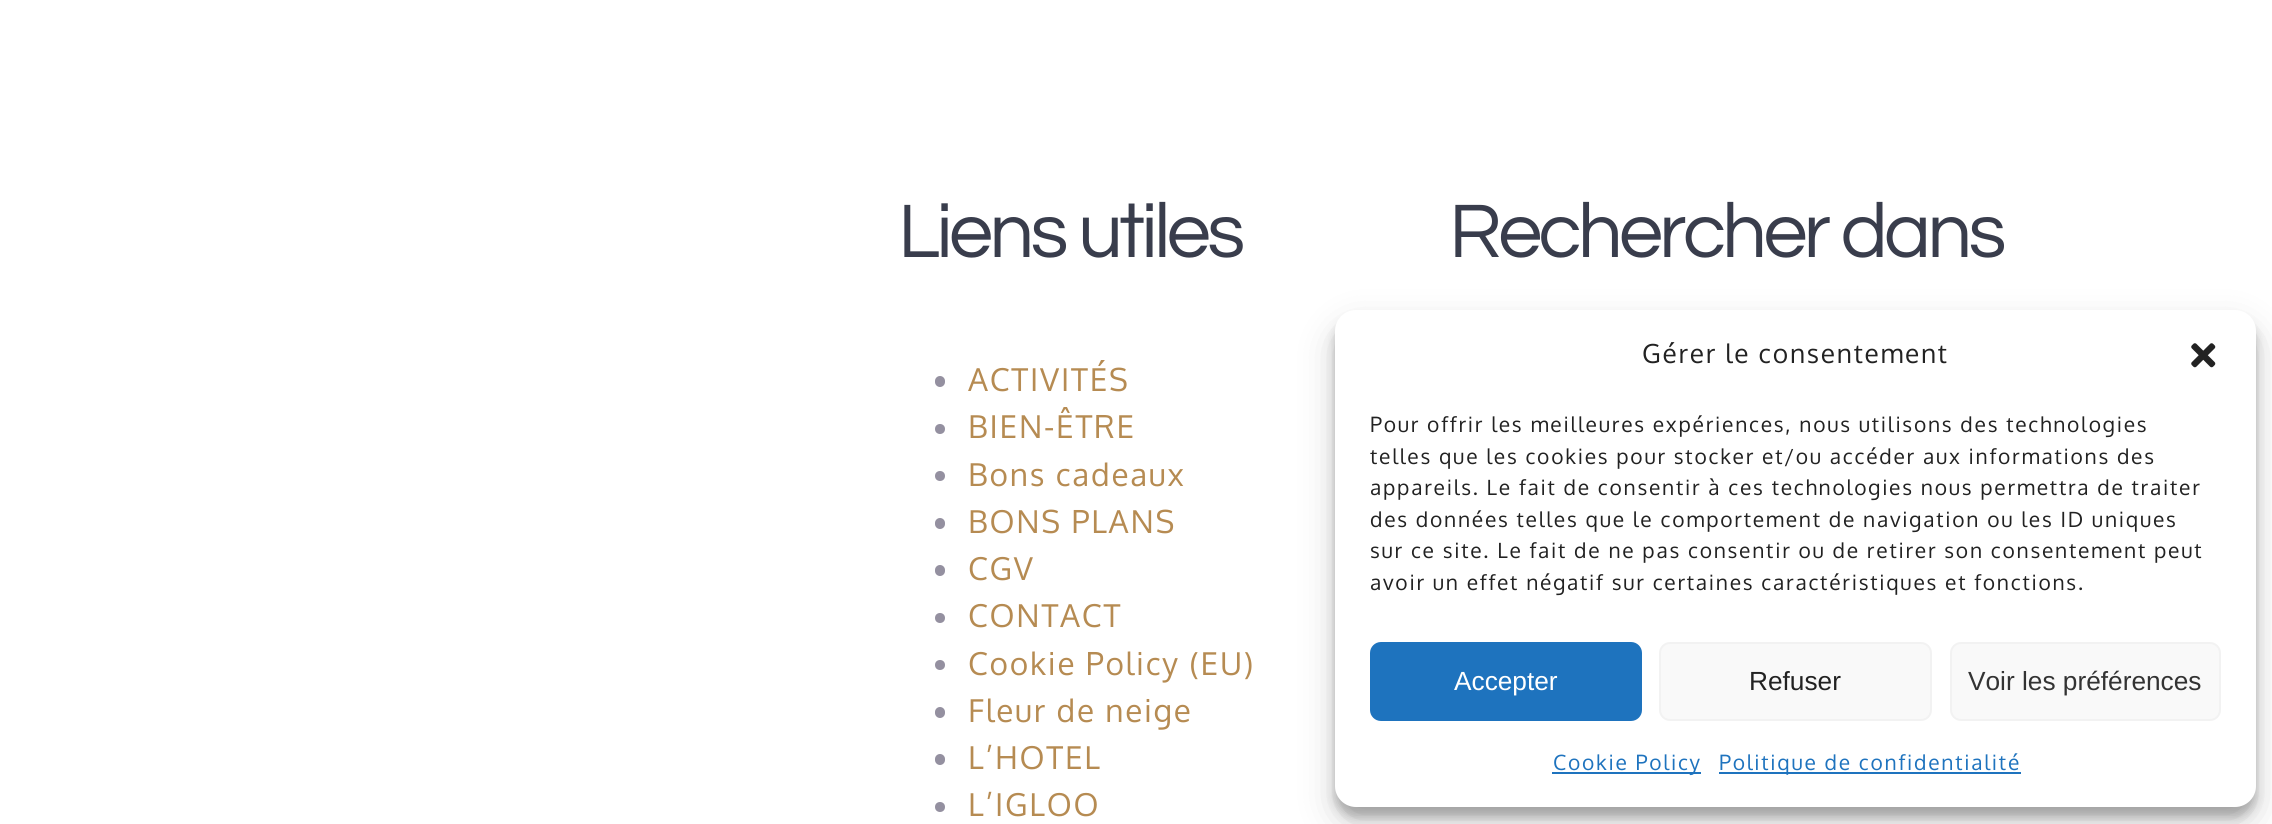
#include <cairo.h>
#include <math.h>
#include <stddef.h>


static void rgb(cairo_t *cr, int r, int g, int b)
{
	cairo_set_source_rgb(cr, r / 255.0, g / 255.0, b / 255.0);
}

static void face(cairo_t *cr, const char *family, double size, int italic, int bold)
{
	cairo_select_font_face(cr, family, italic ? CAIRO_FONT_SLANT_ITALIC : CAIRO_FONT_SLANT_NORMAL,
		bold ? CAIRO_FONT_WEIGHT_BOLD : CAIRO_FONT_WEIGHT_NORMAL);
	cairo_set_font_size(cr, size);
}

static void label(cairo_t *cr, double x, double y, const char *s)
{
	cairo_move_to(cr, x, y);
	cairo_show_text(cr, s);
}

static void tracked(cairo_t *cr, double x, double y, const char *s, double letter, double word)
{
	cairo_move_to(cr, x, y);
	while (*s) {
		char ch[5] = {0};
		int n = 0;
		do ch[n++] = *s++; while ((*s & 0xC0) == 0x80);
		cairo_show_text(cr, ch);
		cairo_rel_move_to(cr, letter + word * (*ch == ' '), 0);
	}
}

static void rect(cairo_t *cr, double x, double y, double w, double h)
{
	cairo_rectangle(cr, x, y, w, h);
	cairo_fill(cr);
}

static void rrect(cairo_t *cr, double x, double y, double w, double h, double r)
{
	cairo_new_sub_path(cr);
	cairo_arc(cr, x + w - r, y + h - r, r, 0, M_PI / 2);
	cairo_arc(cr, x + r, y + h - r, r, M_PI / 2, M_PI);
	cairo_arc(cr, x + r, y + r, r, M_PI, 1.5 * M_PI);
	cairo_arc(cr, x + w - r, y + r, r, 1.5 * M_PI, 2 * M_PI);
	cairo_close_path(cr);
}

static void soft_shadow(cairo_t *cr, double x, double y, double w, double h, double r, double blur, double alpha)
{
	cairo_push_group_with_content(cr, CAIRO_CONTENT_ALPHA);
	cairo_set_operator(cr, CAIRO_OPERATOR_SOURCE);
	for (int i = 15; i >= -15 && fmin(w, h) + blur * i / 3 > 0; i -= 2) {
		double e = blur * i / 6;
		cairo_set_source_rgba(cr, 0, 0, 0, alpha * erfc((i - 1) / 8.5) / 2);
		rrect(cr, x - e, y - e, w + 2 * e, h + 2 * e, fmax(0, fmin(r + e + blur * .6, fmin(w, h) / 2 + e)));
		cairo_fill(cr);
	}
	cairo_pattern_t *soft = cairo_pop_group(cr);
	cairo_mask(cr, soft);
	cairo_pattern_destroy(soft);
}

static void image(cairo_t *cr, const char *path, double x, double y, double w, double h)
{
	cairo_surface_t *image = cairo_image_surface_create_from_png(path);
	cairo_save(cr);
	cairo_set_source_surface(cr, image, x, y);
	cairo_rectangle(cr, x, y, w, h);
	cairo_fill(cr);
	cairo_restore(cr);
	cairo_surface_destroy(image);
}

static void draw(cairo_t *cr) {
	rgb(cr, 255, 255, 255);
	cairo_paint(cr);
	face(cr, "Questrial", 78.75, 0, 0);
	rgb(cr, 57, 61, 76);
	tracked(cr, 898, 257, "Liens utiles", -3.5, 0);
	rgb(cr, 148, 144, 160);
	rrect(cr, 935, 376, 10, 11, 5);
	cairo_fill(cr);
	face(cr, "Oxygen", 31.5, 0, 0);
	rgb(cr, 182, 139, 82);
	tracked(cr, 968, 391, "ACTIVITÉS", 1.75, 0);
	rgb(cr, 148, 144, 160);
	cairo_new_path(cr);
	cairo_arc(cr, 940, 429, 5, 0, 2 * M_PI);
	cairo_fill(cr);
	rgb(cr, 182, 139, 82);
	tracked(cr, 968, 438, "BIEN-ÊTRE", 1.75, 0);
	rgb(cr, 148, 144, 160);
	cairo_new_path(cr);
	cairo_arc(cr, 940, 476, 5, 0, 2 * M_PI);
	cairo_fill(cr);
	rgb(cr, 182, 139, 82);
	tracked(cr, 968, 486, "Bons cadeaux", 1.75, 0);
	rgb(cr, 148, 144, 160);
	rrect(cr, 935, 518, 10, 11, 5);
	cairo_fill(cr);
	rgb(cr, 182, 139, 82);
	tracked(cr, 968, 533, "BONS PLANS", 1.75, 0);
	rgb(cr, 148, 144, 160);
	rrect(cr, 935, 565, 10, 11, 5);
	cairo_fill(cr);
	rgb(cr, 182, 139, 82);
	tracked(cr, 968, 580, "CGV", 1.75, 0);
	rgb(cr, 148, 144, 160);
	cairo_new_path(cr);
	cairo_arc(cr, 940, 618, 5, 0, 2 * M_PI);
	cairo_fill(cr);
	rgb(cr, 182, 139, 82);
	tracked(cr, 968, 627, "CONTACT", 1.75, 0);
	rgb(cr, 148, 144, 160);
	cairo_new_path(cr);
	cairo_arc(cr, 940, 665, 5, 0, 2 * M_PI);
	cairo_fill(cr);
	rgb(cr, 182, 139, 82);
	tracked(cr, 968, 675, "Cookie Policy (EU)", 1.75, 0);
	rgb(cr, 148, 144, 160);
	rrect(cr, 935, 707, 10, 11, 5);
	cairo_fill(cr);
	rgb(cr, 182, 139, 82);
	tracked(cr, 968, 722, "Fleur de neige", 1.75, 0);
	rgb(cr, 148, 144, 160);
	rrect(cr, 935, 754, 10, 11, 5);
	cairo_fill(cr);
	rgb(cr, 182, 139, 82);
	tracked(cr, 968, 769, "L’HOTEL", 1.75, 0);
	rgb(cr, 148, 144, 160);
	cairo_new_path(cr);
	cairo_arc(cr, 940, 807, 5, 0, 2 * M_PI);
	cairo_fill(cr);
	rgb(cr, 182, 139, 82);
	tracked(cr, 968, 816, "L’IGLOO", 1.75, 0);
	face(cr, "Questrial", 78.75, 0, 0);
	rgb(cr, 57, 61, 76);
	tracked(cr, 1449, 257, "Rechercher dans", -3.5, 0);
	rgb(cr, 0, 0, 0);
	soft_shadow(cr, 1335, 320, 921, 497, 21, 5, 0.23);
	soft_shadow(cr, 1335, 327, 921, 497, 21, 17.5, 0.19);
	rgb(cr, 255, 255, 255);
	rrect(cr, 1335, 310, 921, 497, 21);
	cairo_fill(cr);
	face(cr, "Oxygen", 26.25, 0, 0);
	rgb(cr, 34, 34, 34);
	tracked(cr, 1642, 363, "Gérer le consentement", 1.75, 0);
	image(cr, "image0.png", 2191, 343, 25, 25);
	face(cr, "Oxygen", 21, 0, 0);
	tracked(cr, 1370, 432, "Pour offrir les meilleures expériences, nous utilisons des technologies", 1.75, 0);
	tracked(cr, 1370, 464, "telles que les cookies pour stocker et/ou accéder aux informations des", 1.75, 0);
	tracked(cr, 1370, 495, "appareils. Le fait de consentir à ces technologies nous permettra de traiter", 1.75, 0);
	tracked(cr, 1370, 527, "des données telles que le comportement de navigation ou les ID uniques", 1.75, 0);
	tracked(cr, 1370, 558, "sur ce site. Le fait de ne pas consentir ou de retirer son consentement peut", 1.75, 0);
	tracked(cr, 1370, 590, "avoir un effet négatif sur certaines caractéristiques et fonctions.", 1.75, 0);
	rgb(cr, 30, 115, 190);
	rrect(cr, 1371, 643, 270, 77, 10);
	cairo_fill_preserve(cr);
	cairo_stroke(cr);
	face(cr, "Liberation Sans", 26.25, 0, 0);
	rgb(cr, 255, 255, 255);
	label(cr, 1454, 690, "Accepter");
	rgb(cr, 249, 249, 249);
	rrect(cr, 1660, 643, 271, 77, 10);
	cairo_fill_preserve(cr);
	rgb(cr, 242, 242, 242);
	cairo_stroke(cr);
	rgb(cr, 34, 34, 34);
	label(cr, 1749, 690, "Refuser");
	rgb(cr, 249, 249, 249);
	rrect(cr, 1951, 643, 269, 77, 10);
	cairo_fill_preserve(cr);
	rgb(cr, 242, 242, 242);
	cairo_stroke(cr);
	rgb(cr, 51, 51, 51);
	label(cr, 1968, 690, "Voir les préférences");
	rgb(cr, 30, 115, 190);
	rect(cr, 1552, 772, 149, 2);
	face(cr, "Oxygen", 21, 0, 0);
	tracked(cr, 1553, 770, "Cookie Policy", 1.75, 0);
	rect(cr, 1719, 772, 302, 2);
	tracked(cr, 1719, 770, "Politique de confidentialité", 1.75, 0);
}

int main(void) {
	cairo_surface_t *surface = cairo_image_surface_create(CAIRO_FORMAT_RGB24, 2272, 824);
	cairo_t *cr = cairo_create(surface);
	cairo_font_options_t *options = cairo_font_options_create();
	cairo_font_options_set_hint_metrics(options, CAIRO_HINT_METRICS_OFF);
	cairo_font_options_set_hint_style(options, CAIRO_HINT_STYLE_NONE);
	cairo_set_font_options(cr, options);
	cairo_set_miter_limit(cr, 4);
	draw(cr);
	cairo_surface_write_to_png(surface, "render.png");
	cairo_font_options_destroy(options);
	cairo_destroy(cr);
	cairo_surface_destroy(surface);
	return 0;
}
